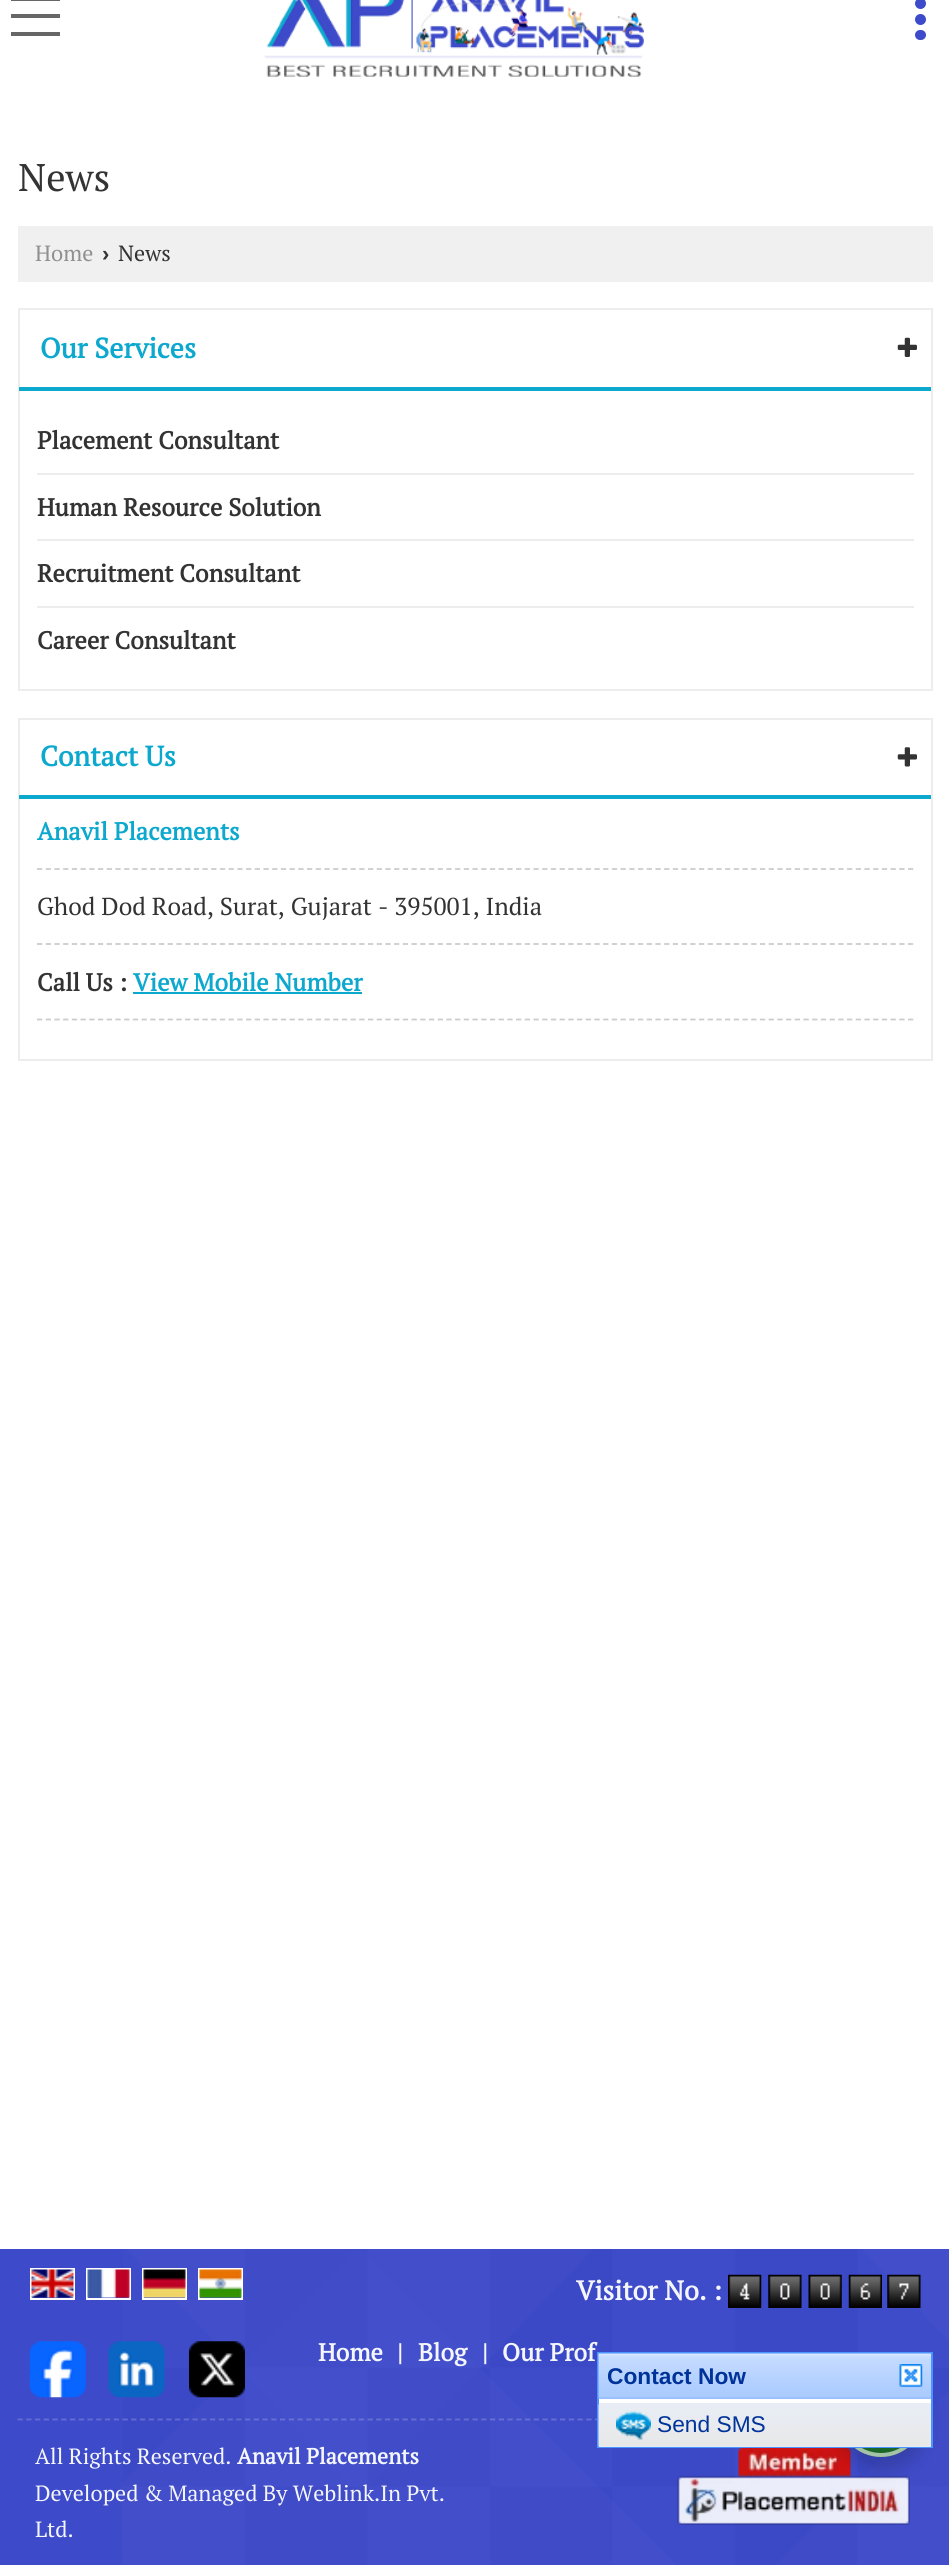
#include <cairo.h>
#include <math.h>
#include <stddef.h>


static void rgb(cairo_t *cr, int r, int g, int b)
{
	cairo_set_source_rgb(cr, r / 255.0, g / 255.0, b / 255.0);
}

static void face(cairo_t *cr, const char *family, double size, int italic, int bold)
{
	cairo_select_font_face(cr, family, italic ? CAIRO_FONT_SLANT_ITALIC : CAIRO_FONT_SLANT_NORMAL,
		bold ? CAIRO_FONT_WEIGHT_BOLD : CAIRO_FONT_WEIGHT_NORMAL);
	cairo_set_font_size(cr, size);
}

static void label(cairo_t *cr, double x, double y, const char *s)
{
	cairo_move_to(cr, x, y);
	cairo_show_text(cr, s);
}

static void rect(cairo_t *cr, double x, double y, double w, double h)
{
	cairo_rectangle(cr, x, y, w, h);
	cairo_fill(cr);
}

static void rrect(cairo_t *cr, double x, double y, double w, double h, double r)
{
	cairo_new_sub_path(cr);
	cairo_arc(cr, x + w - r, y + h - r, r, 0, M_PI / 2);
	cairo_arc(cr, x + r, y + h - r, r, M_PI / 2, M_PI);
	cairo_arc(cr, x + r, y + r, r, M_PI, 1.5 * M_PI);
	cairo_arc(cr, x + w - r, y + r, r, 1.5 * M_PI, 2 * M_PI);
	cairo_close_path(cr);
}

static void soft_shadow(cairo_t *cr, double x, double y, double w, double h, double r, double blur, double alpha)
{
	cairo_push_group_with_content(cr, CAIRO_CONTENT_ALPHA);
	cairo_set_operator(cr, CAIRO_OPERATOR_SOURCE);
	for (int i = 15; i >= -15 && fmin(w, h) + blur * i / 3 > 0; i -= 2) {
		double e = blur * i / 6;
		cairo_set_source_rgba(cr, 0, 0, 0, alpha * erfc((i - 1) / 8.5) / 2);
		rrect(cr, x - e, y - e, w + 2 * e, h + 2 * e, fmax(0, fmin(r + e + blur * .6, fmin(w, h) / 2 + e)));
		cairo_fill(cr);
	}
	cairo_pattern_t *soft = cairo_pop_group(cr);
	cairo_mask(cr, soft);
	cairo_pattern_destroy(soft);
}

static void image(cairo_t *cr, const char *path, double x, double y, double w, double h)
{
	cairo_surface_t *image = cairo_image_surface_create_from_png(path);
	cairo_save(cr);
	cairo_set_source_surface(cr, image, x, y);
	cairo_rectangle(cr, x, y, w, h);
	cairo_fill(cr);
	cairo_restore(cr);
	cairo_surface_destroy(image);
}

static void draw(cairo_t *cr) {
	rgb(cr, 255, 255, 255);
	cairo_paint(cr);
	rgb(cr, 102, 102, 102);
	rect(cr, 11, 14, 49, 4);
	rect(cr, 11, 0, 49, 1);
	rect(cr, 11, 32, 49, 4);
	image(cr, "image0.png", 264, 0, 380, 77);
	rgb(cr, 61, 74, 201);
	cairo_arc(cr, 920.5, 19.5, 5.5, 0, 2 * M_PI);
	cairo_fill(cr);
	cairo_arc(cr, 920.5, 3.5, 5.5, 0, 2 * M_PI);
	cairo_fill(cr);
	rrect(cr, 915, 30, 11, 10, 5);
	cairo_fill(cr);
	face(cr, "PT Serif", 38.5, 0, 0);
	rgb(cr, 51, 51, 51);
	label(cr, 18, 191, "News");
	rgb(cr, 240, 240, 240);
	rect(cr, 18, 226, 915, 56);
	face(cr, "PT Serif", 22, 0, 0);
	rgb(cr, 144, 144, 144);
	label(cr, 35, 261, "Home");
	face(cr, "Liberation Sans", 22, 0, 1);
	rgb(cr, 51, 51, 51);
	label(cr, 102, 261, "›");
	face(cr, "PT Serif", 22, 0, 0);
	label(cr, 118, 261, "News");
	cairo_rectangle(cr, 19, 309, 913, 381);
	rgb(cr, 237, 237, 237);
	cairo_stroke(cr);
	rgb(cr, 13, 168, 206);
	rect(cr, 19, 387, 912, 4);
	face(cr, "PT Serif", 28, 0, 1);
	label(cr, 40, 358, "Our Services");
	image(cr, "image1.png", 897, 337, 20, 20);
	rgb(cr, 237, 237, 237);
	rect(cr, 37, 473, 877, 2);
	face(cr, "PT Serif", 24.5, 0, 1);
	rgb(cr, 51, 51, 51);
	label(cr, 37, 449, "Placement Consultant");
	rgb(cr, 237, 237, 237);
	rect(cr, 37, 539, 877, 2);
	rgb(cr, 51, 51, 51);
	label(cr, 37, 516, "Human Resource Solution");
	rgb(cr, 237, 237, 237);
	rect(cr, 37, 606, 877, 2);
	rgb(cr, 51, 51, 51);
	label(cr, 37, 582, "Recruitment Consultant");
	label(cr, 37, 649, "Career Consultant");
	cairo_rectangle(cr, 19, 719, 913, 341);
	rgb(cr, 237, 237, 237);
	cairo_stroke(cr);
	rgb(cr, 13, 168, 206);
	rect(cr, 19, 795, 912, 4);
	face(cr, "PT Serif", 28, 0, 1);
	label(cr, 40, 766, "Contact Us");
	image(cr, "image2.png", 897, 747, 20, 20);
	face(cr, "PT Serif", 24.5, 0, 1);
	label(cr, 37, 840, "Anavil Placements");
	cairo_new_path(cr);
	cairo_move_to(cr, 37, 869);
	cairo_line_to(cr, 913.5, 869);
	rgb(cr, 204, 204, 204);
	cairo_set_line_width(cr, 1.8);
	cairo_set_dash(cr, (double[]){5.25, 3.46}, 2, 0);
	cairo_stroke(cr);
	face(cr, "PT Serif", 24.5, 0, 0);
	rgb(cr, 51, 51, 51);
	label(cr, 37, 915, "Ghod Dod Road, Surat, Gujarat - 395001, India");
	cairo_new_path(cr);
	cairo_move_to(cr, 37, 944);
	cairo_line_to(cr, 913.5, 944);
	rgb(cr, 204, 204, 204);
	cairo_stroke(cr);
	face(cr, "PT Serif", 24.5, 0, 1);
	rgb(cr, 51, 51, 51);
	label(cr, 37, 991, "Call Us :");
	rgb(cr, 13, 168, 206);
	label(cr, 133, 991, "View Mobile Number");
	rect(cr, 133, 992, 229, 2);
	cairo_new_path(cr);
	cairo_move_to(cr, 37, 1019.5);
	cairo_line_to(cr, 913.5, 1019.5);
	rgb(cr, 204, 204, 204);
	cairo_stroke(cr);
	rgb(cr, 61, 74, 201);
	rect(cr, 0, 2249, 949, 316);
	image(cr, "image3.png", 121, 2249, 828, 316);
	cairo_rectangle(cr, 31, 2269, 43, 30);
	rgb(cr, 255, 255, 255);
	cairo_set_line_width(cr, 2);
	cairo_set_dash(cr, NULL, 0, 0);
	cairo_stroke(cr);
	cairo_rectangle(cr, 87, 2269, 43, 30);
	cairo_stroke(cr);
	cairo_rectangle(cr, 143, 2269, 43, 30);
	cairo_stroke(cr);
	cairo_rectangle(cr, 199, 2269, 43, 30);
	cairo_stroke(cr);
	image(cr, "image4.png", 31, 2269, 43, 29);
	image(cr, "image5.png", 87, 2269, 43, 29);
	image(cr, "image6.png", 143, 2269, 43, 29);
	image(cr, "image7.png", 199, 2269, 43, 29);
	face(cr, "PT Serif", 27, 0, 1);
	rgb(cr, 245, 246, 252);
	label(cr, 576, 2300, "Visitor No. :");
	image(cr, "image8.png", 728, 2274, 34, 34);
	image(cr, "image9.png", 768, 2274, 34, 34);
	image(cr, "image10.png", 808, 2274, 34, 34);
	image(cr, "image11.png", 848, 2274, 34, 34);
	image(cr, "image12.png", 887, 2274, 34, 34);
	image(cr, "image13.png", 29, 2341, 57, 57);
	image(cr, "image14.png", 108, 2341, 57, 57);
	image(cr, "image15.png", 189, 2341, 56, 57);
	face(cr, "PT Serif", 24.5, 0, 1);
	label(cr, 318, 2361, "Home");
	label(cr, 397, 2361, "|");
	label(cr, 418, 2361, "Blog");
	label(cr, 482, 2361, "|");
	label(cr, 502, 2361, "Our Prof");
	cairo_new_path(cr);
	cairo_move_to(cr, 17.5, 2419.5);
	cairo_line_to(cr, 933, 2419.5);
	cairo_set_source_rgba(cr, 1, 1, 1, 0.2);
	cairo_set_line_width(cr, 1.8);
	cairo_set_dash(cr, (double[]){5.25, 3.5}, 2, 0);
	cairo_stroke(cr);
	face(cr, "PT Serif", 22, 0, 0);
	rgb(cr, 245, 246, 252);
	label(cr, 35, 2464, "All Rights Reserved.");
	face(cr, "PT Serif", 22, 0, 1);
	label(cr, 237, 2464, "Anavil Placements");
	face(cr, "PT Serif", 22, 0, 0);
	label(cr, 35, 2501, "Developed & Managed By Weblink.In Pvt.");
	label(cr, 35, 2537, "Ltd.");
	image(cr, "image16.png", 677, 2448, 233, 77);
	rgb(cr, 0, 0, 0);
	soft_shadow(cr, 835, 2368, 93, 103, 46.5, 7, 0.14);
	rgb(cr, 25, 102, 38);
	rrect(cr, 838, 2361, 86, 96, 43);
	cairo_fill(cr);
	rrect(cr, 840, 2363, 82, 92, 41);
	cairo_set_source_rgba(cr, 1, 1, 1, 0.6);
	cairo_set_line_width(cr, 4);
	cairo_set_dash(cr, NULL, 0, 0);
	cairo_stroke(cr);
	rgb(cr, 255, 255, 255);
	rect(cr, 599, 2399, 332, 4);
	cairo_rectangle(cr, 598, 2353, 334, 94);
	rgb(cr, 75, 147, 255);
	cairo_set_line_width(cr, 2);
	cairo_stroke(cr);
	image(cr, "image17.png", 598, 2353, 333, 46);
	face(cr, "Liberation Sans", 22.75, 0, 1);
	rgb(cr, 0, 51, 153);
	label(cr, 607, 2384, "Contact Now");
	image(cr, "image18.png", 899, 2364, 24, 23);
	rgb(cr, 232, 237, 245);
	rect(cr, 599, 2403, 332, 44);
	image(cr, "image19.png", 598, 2404, 333, 43);
	image(cr, "image20.png", 616, 2411, 35, 29);
	face(cr, "Liberation Sans", 22.75, 0, 0);
	rgb(cr, 0, 51, 153);
	label(cr, 657, 2432, "Send SMS");
}

int main(void) {
	cairo_surface_t *surface = cairo_image_surface_create(CAIRO_FORMAT_RGB24, 949, 2565);
	cairo_t *cr = cairo_create(surface);
	cairo_font_options_t *options = cairo_font_options_create();
	cairo_font_options_set_hint_metrics(options, CAIRO_HINT_METRICS_OFF);
	cairo_font_options_set_hint_style(options, CAIRO_HINT_STYLE_NONE);
	cairo_set_font_options(cr, options);
	cairo_set_miter_limit(cr, 4);
	draw(cr);
	cairo_surface_write_to_png(surface, "render.png");
	cairo_font_options_destroy(options);
	cairo_destroy(cr);
	cairo_surface_destroy(surface);
	return 0;
}
